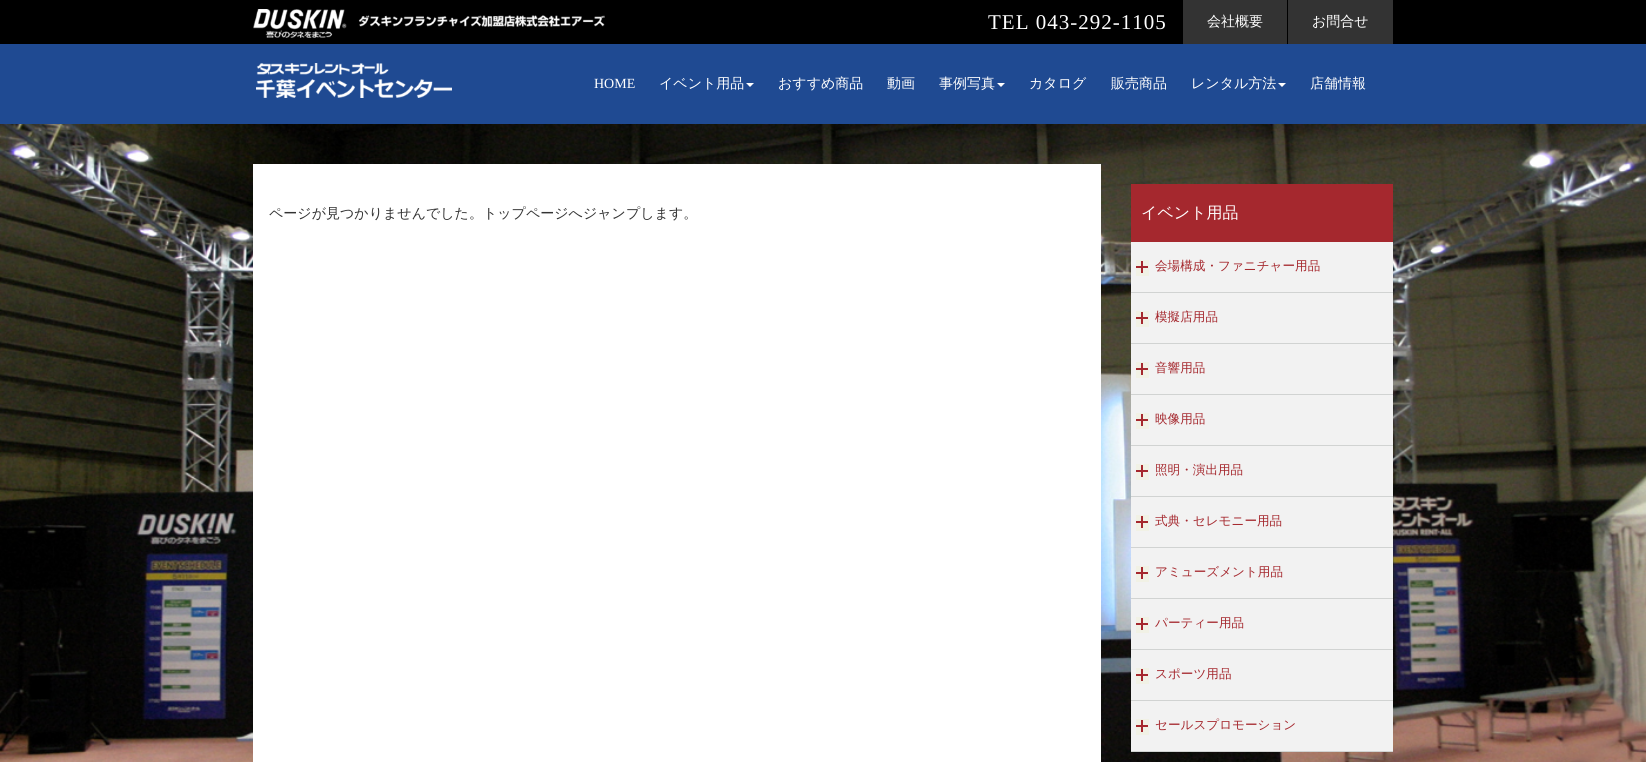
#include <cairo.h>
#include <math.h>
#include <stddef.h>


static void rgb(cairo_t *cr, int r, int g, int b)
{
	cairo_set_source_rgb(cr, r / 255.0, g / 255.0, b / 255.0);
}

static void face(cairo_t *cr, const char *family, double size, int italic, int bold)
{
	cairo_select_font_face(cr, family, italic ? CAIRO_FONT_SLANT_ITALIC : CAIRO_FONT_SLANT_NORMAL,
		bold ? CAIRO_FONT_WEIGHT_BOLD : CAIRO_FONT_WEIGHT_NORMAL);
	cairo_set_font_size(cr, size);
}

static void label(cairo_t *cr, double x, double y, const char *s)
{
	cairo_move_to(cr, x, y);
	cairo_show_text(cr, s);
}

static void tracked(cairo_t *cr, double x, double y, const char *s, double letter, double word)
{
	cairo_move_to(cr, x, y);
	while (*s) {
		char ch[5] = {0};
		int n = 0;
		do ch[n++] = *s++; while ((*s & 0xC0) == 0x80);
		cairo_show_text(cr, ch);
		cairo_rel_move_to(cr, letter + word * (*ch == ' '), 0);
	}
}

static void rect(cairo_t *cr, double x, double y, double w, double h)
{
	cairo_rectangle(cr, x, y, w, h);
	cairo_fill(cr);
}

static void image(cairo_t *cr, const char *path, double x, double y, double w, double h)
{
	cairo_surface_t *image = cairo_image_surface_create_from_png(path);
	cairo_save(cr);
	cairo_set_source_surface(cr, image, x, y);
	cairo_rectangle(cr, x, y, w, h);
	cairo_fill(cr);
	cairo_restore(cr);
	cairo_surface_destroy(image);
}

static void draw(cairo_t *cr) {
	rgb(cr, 0, 0, 0);
	cairo_paint(cr);
	image(cr, "image0.png", 253, 9, 352, 29);
	face(cr, "Liberation Serif", 21, 0, 0);
	rgb(cr, 255, 255, 255);
	tracked(cr, 988, 29, "TEL 043-292-1105", 1, 0);
	rgb(cr, 51, 51, 51);
	rect(cr, 1183, 0, 104, 44);
	face(cr, "WenQuanYi Zen Hei Medium", 14, 0, 0);
	rgb(cr, 255, 255, 255);
	label(cr, 1207, 26, "会社概要");
	rgb(cr, 51, 51, 51);
	rect(cr, 1288, 0, 105, 44);
	rgb(cr, 255, 255, 255);
	label(cr, 1312, 26, "お問合せ");
	rgb(cr, 31, 74, 146);
	rect(cr, 0, 44, 1646, 80);
	image(cr, "image1.png", 256, 63, 196, 35);
	face(cr, "Liberation Serif", 14, 0, 0);
	rgb(cr, 255, 255, 255);
	label(cr, 594, 88, "HOME");
	face(cr, "WenQuanYi Zen Hei Medium", 14, 0, 0);
	label(cr, 659, 88, "イベント用品");
	cairo_new_path(cr);
	cairo_move_to(cr, 746, 83);
	cairo_line_to(cr, 754, 83);
	cairo_line_to(cr, 750, 87);
	cairo_close_path(cr);
	cairo_fill(cr);
	label(cr, 778, 88, "おすすめ商品");
	label(cr, 887, 88, "動画");
	label(cr, 939, 88, "事例写真");
	cairo_new_path(cr);
	cairo_move_to(cr, 997, 83);
	cairo_line_to(cr, 1005, 83);
	cairo_line_to(cr, 1001, 87);
	cairo_close_path(cr);
	cairo_fill(cr);
	label(cr, 1029, 88, "カタログ");
	label(cr, 1111, 88, "販売商品");
	label(cr, 1191, 88, "レンタル方法");
	cairo_new_path(cr);
	cairo_move_to(cr, 1278, 83);
	cairo_line_to(cr, 1286, 83);
	cairo_line_to(cr, 1282, 87);
	cairo_close_path(cr);
	cairo_fill(cr);
	label(cr, 1310, 88, "店舗情報");
	image(cr, "image2.png", 0, 124, 1646, 638);
	rect(cr, 253, 164, 848, 598);
	rgb(cr, 51, 51, 51);
	label(cr, 269, 218, "ページが見つかりませんでした。トップページへジャンプします。");
	rgb(cr, 165, 40, 46);
	rect(cr, 1131, 184, 262, 58);
	face(cr, "WenQuanYi Zen Hei Medium", 16, 0, 0);
	rgb(cr, 255, 255, 255);
	label(cr, 1141, 218, "イベント用品");
	rgb(cr, 242, 242, 242);
	rect(cr, 1131, 242, 262, 50);
	image(cr, "image3.png", 1136, 260, 13, 16);
	rgb(cr, 209, 211, 210);
	rect(cr, 1131, 292, 262, 1);
	face(cr, "WenQuanYi Zen Hei Medium", 12.6, 0, 0);
	rgb(cr, 165, 40, 46);
	label(cr, 1155, 270, "会場構成・ファニチャー用品");
	rgb(cr, 242, 242, 242);
	rect(cr, 1131, 293, 262, 50);
	image(cr, "image3.png", 1136, 311, 13, 16);
	rgb(cr, 209, 211, 210);
	rect(cr, 1131, 343, 262, 1);
	rgb(cr, 165, 40, 46);
	label(cr, 1155, 321, "模擬店用品");
	rgb(cr, 242, 242, 242);
	rect(cr, 1131, 344, 262, 50);
	image(cr, "image3.png", 1136, 362, 13, 16);
	rgb(cr, 209, 211, 210);
	rect(cr, 1131, 394, 262, 1);
	rgb(cr, 165, 40, 46);
	label(cr, 1155, 372, "音響用品");
	rgb(cr, 242, 242, 242);
	rect(cr, 1131, 395, 262, 50);
	image(cr, "image3.png", 1136, 413, 13, 16);
	rgb(cr, 209, 211, 210);
	rect(cr, 1131, 445, 262, 1);
	rgb(cr, 165, 40, 46);
	label(cr, 1155, 423, "映像用品");
	rgb(cr, 242, 242, 242);
	rect(cr, 1131, 446, 262, 50);
	image(cr, "image3.png", 1136, 464, 13, 16);
	rgb(cr, 209, 211, 210);
	rect(cr, 1131, 496, 262, 1);
	rgb(cr, 165, 40, 46);
	label(cr, 1155, 474, "照明・演出用品");
	rgb(cr, 242, 242, 242);
	rect(cr, 1131, 497, 262, 50);
	image(cr, "image3.png", 1136, 515, 13, 16);
	rgb(cr, 209, 211, 210);
	rect(cr, 1131, 547, 262, 1);
	rgb(cr, 165, 40, 46);
	label(cr, 1155, 525, "式典・セレモニー用品");
	rgb(cr, 242, 242, 242);
	rect(cr, 1131, 548, 262, 50);
	image(cr, "image3.png", 1136, 566, 13, 16);
	rgb(cr, 209, 211, 210);
	rect(cr, 1131, 598, 262, 1);
	rgb(cr, 165, 40, 46);
	label(cr, 1155, 576, "アミューズメント用品");
	rgb(cr, 242, 242, 242);
	rect(cr, 1131, 599, 262, 50);
	image(cr, "image3.png", 1136, 617, 13, 16);
	rgb(cr, 209, 211, 210);
	rect(cr, 1131, 649, 262, 1);
	rgb(cr, 165, 40, 46);
	label(cr, 1155, 627, "パーティー用品");
	rgb(cr, 242, 242, 242);
	rect(cr, 1131, 650, 262, 50);
	image(cr, "image3.png", 1136, 668, 13, 16);
	rgb(cr, 209, 211, 210);
	rect(cr, 1131, 700, 262, 1);
	rgb(cr, 165, 40, 46);
	label(cr, 1155, 678, "スポーツ用品");
	rgb(cr, 242, 242, 242);
	rect(cr, 1131, 701, 262, 50);
	image(cr, "image3.png", 1136, 719, 13, 16);
	rgb(cr, 209, 211, 210);
	rect(cr, 1131, 751, 262, 1);
	rgb(cr, 165, 40, 46);
	label(cr, 1155, 729, "セールスプロモーション");
}

int main(void) {
	cairo_surface_t *surface = cairo_image_surface_create(CAIRO_FORMAT_RGB24, 1646, 762);
	cairo_t *cr = cairo_create(surface);
	cairo_font_options_t *options = cairo_font_options_create();
	cairo_font_options_set_hint_metrics(options, CAIRO_HINT_METRICS_OFF);
	cairo_font_options_set_hint_style(options, CAIRO_HINT_STYLE_NONE);
	cairo_set_font_options(cr, options);
	cairo_set_miter_limit(cr, 4);
	draw(cr);
	cairo_surface_write_to_png(surface, "render.png");
	cairo_font_options_destroy(options);
	cairo_destroy(cr);
	cairo_surface_destroy(surface);
	return 0;
}
